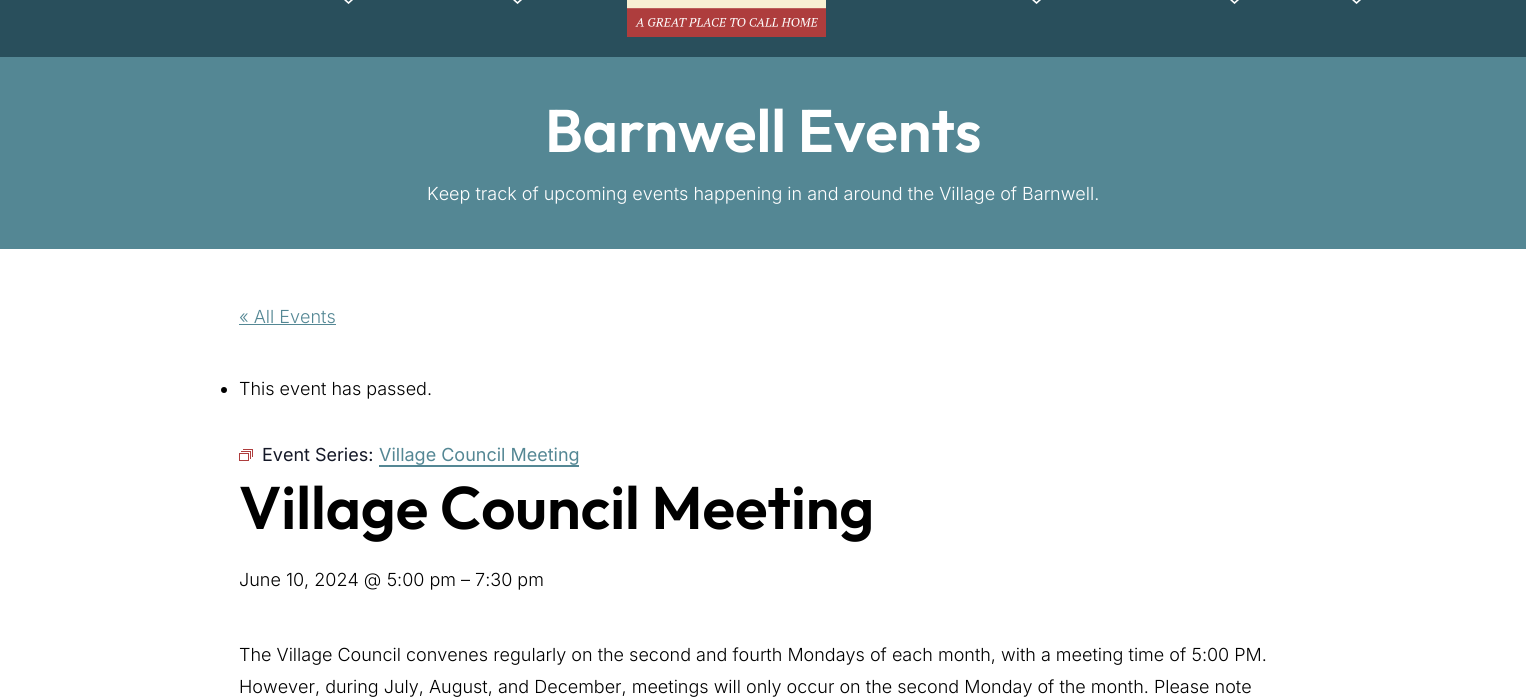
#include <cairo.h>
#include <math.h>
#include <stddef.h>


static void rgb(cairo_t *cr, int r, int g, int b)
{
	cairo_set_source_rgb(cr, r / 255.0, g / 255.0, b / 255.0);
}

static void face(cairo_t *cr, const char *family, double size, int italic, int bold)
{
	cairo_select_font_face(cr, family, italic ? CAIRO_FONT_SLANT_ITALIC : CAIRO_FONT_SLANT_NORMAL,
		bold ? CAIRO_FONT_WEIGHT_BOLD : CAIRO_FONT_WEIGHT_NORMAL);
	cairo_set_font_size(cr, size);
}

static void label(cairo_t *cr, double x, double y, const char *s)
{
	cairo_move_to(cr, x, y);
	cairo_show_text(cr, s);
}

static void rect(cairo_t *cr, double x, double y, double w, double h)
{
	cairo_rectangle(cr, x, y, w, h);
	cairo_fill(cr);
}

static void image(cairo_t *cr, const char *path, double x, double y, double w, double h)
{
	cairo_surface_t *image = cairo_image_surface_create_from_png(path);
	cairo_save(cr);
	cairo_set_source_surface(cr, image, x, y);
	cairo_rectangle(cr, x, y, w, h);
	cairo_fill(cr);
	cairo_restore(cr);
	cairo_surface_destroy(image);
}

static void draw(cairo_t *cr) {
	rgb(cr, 255, 255, 255);
	cairo_paint(cr);
	rgb(cr, 41, 79, 92);
	rect(cr, 0, 0, 1526, 57);
	cairo_new_path(cr);
	cairo_move_to(cr, 343.5, -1.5);
	cairo_line_to(cr, 348.5, 3);
	cairo_line_to(cr, 353.5, -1.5);
	rgb(cr, 255, 255, 255);
	cairo_set_line_width(cr, 1.6);
	cairo_stroke(cr);
	cairo_new_path(cr);
	cairo_move_to(cr, 512.5, -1.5);
	cairo_line_to(cr, 517.5, 3);
	cairo_line_to(cr, 522.5, -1.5);
	cairo_stroke(cr);
	image(cr, "image0.png", 627, 0, 199, 37);
	cairo_new_path(cr);
	cairo_move_to(cr, 1031.5, -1.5);
	cairo_line_to(cr, 1036.5, 3);
	cairo_line_to(cr, 1041.5, -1.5);
	cairo_stroke(cr);
	cairo_new_path(cr);
	cairo_move_to(cr, 1229.5, -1.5);
	cairo_line_to(cr, 1234.5, 3);
	cairo_line_to(cr, 1239.5, -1.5);
	cairo_stroke(cr);
	cairo_new_path(cr);
	cairo_move_to(cr, 1351.5, -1.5);
	cairo_line_to(cr, 1356.5, 3);
	cairo_line_to(cr, 1361.5, -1.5);
	cairo_stroke(cr);
	rgb(cr, 84, 135, 148);
	rect(cr, 0, 57, 1526, 192);
	face(cr, "Outfit SemiBold", 60, 0, 0);
	rgb(cr, 255, 255, 255);
	label(cr, 545, 152, "Barnwell Events");
	face(cr, "Inter Light", 18, 0, 0);
	label(cr, 427, 200, "Keep track of upcoming events happening in and around the Village of Barnwell.");
	rgb(cr, 84, 135, 148);
	label(cr, 239, 323, "« All Events");
	rect(cr, 239, 324, 97, 1);
	rgb(cr, 0, 0, 0);
	cairo_new_path(cr);
	cairo_arc(cr, 224, 390, 3, 0, 2 * M_PI);
	cairo_fill(cr);
	label(cr, 239, 395, "This event has passed.");
	image(cr, "image1.png", 239, 449, 14, 12);
	face(cr, "Inter", 18, 0, 0);
	rgb(cr, 20, 24, 39);
	label(cr, 262, 461, "Event Series:");
	rgb(cr, 84, 135, 148);
	label(cr, 379, 461, "Village Council Meeting");
	rect(cr, 379, 465, 200, 2);
	face(cr, "Outfit SemiBold", 60, 0, 0);
	rgb(cr, 0, 0, 0);
	label(cr, 239, 529, "Village Council Meeting");
	face(cr, "Inter Light", 18, 0, 0);
	label(cr, 239, 586, "June 10, 2024 @ 5:00 pm – 7:30 pm");
	label(cr, 239, 661, "The Village Council convenes regularly on the second and fourth Mondays of each month, with a meeting time of 5:00 PM.");
	label(cr, 239, 693, "However, during July, August, and December, meetings will only occur on the second Monday of the month. Please note");
}

int main(void) {
	cairo_surface_t *surface = cairo_image_surface_create(CAIRO_FORMAT_RGB24, 1526, 697);
	cairo_t *cr = cairo_create(surface);
	cairo_font_options_t *options = cairo_font_options_create();
	cairo_font_options_set_hint_metrics(options, CAIRO_HINT_METRICS_OFF);
	cairo_font_options_set_hint_style(options, CAIRO_HINT_STYLE_NONE);
	cairo_set_font_options(cr, options);
	cairo_set_miter_limit(cr, 4);
	draw(cr);
	cairo_surface_write_to_png(surface, "render.png");
	cairo_font_options_destroy(options);
	cairo_destroy(cr);
	cairo_surface_destroy(surface);
	return 0;
}
